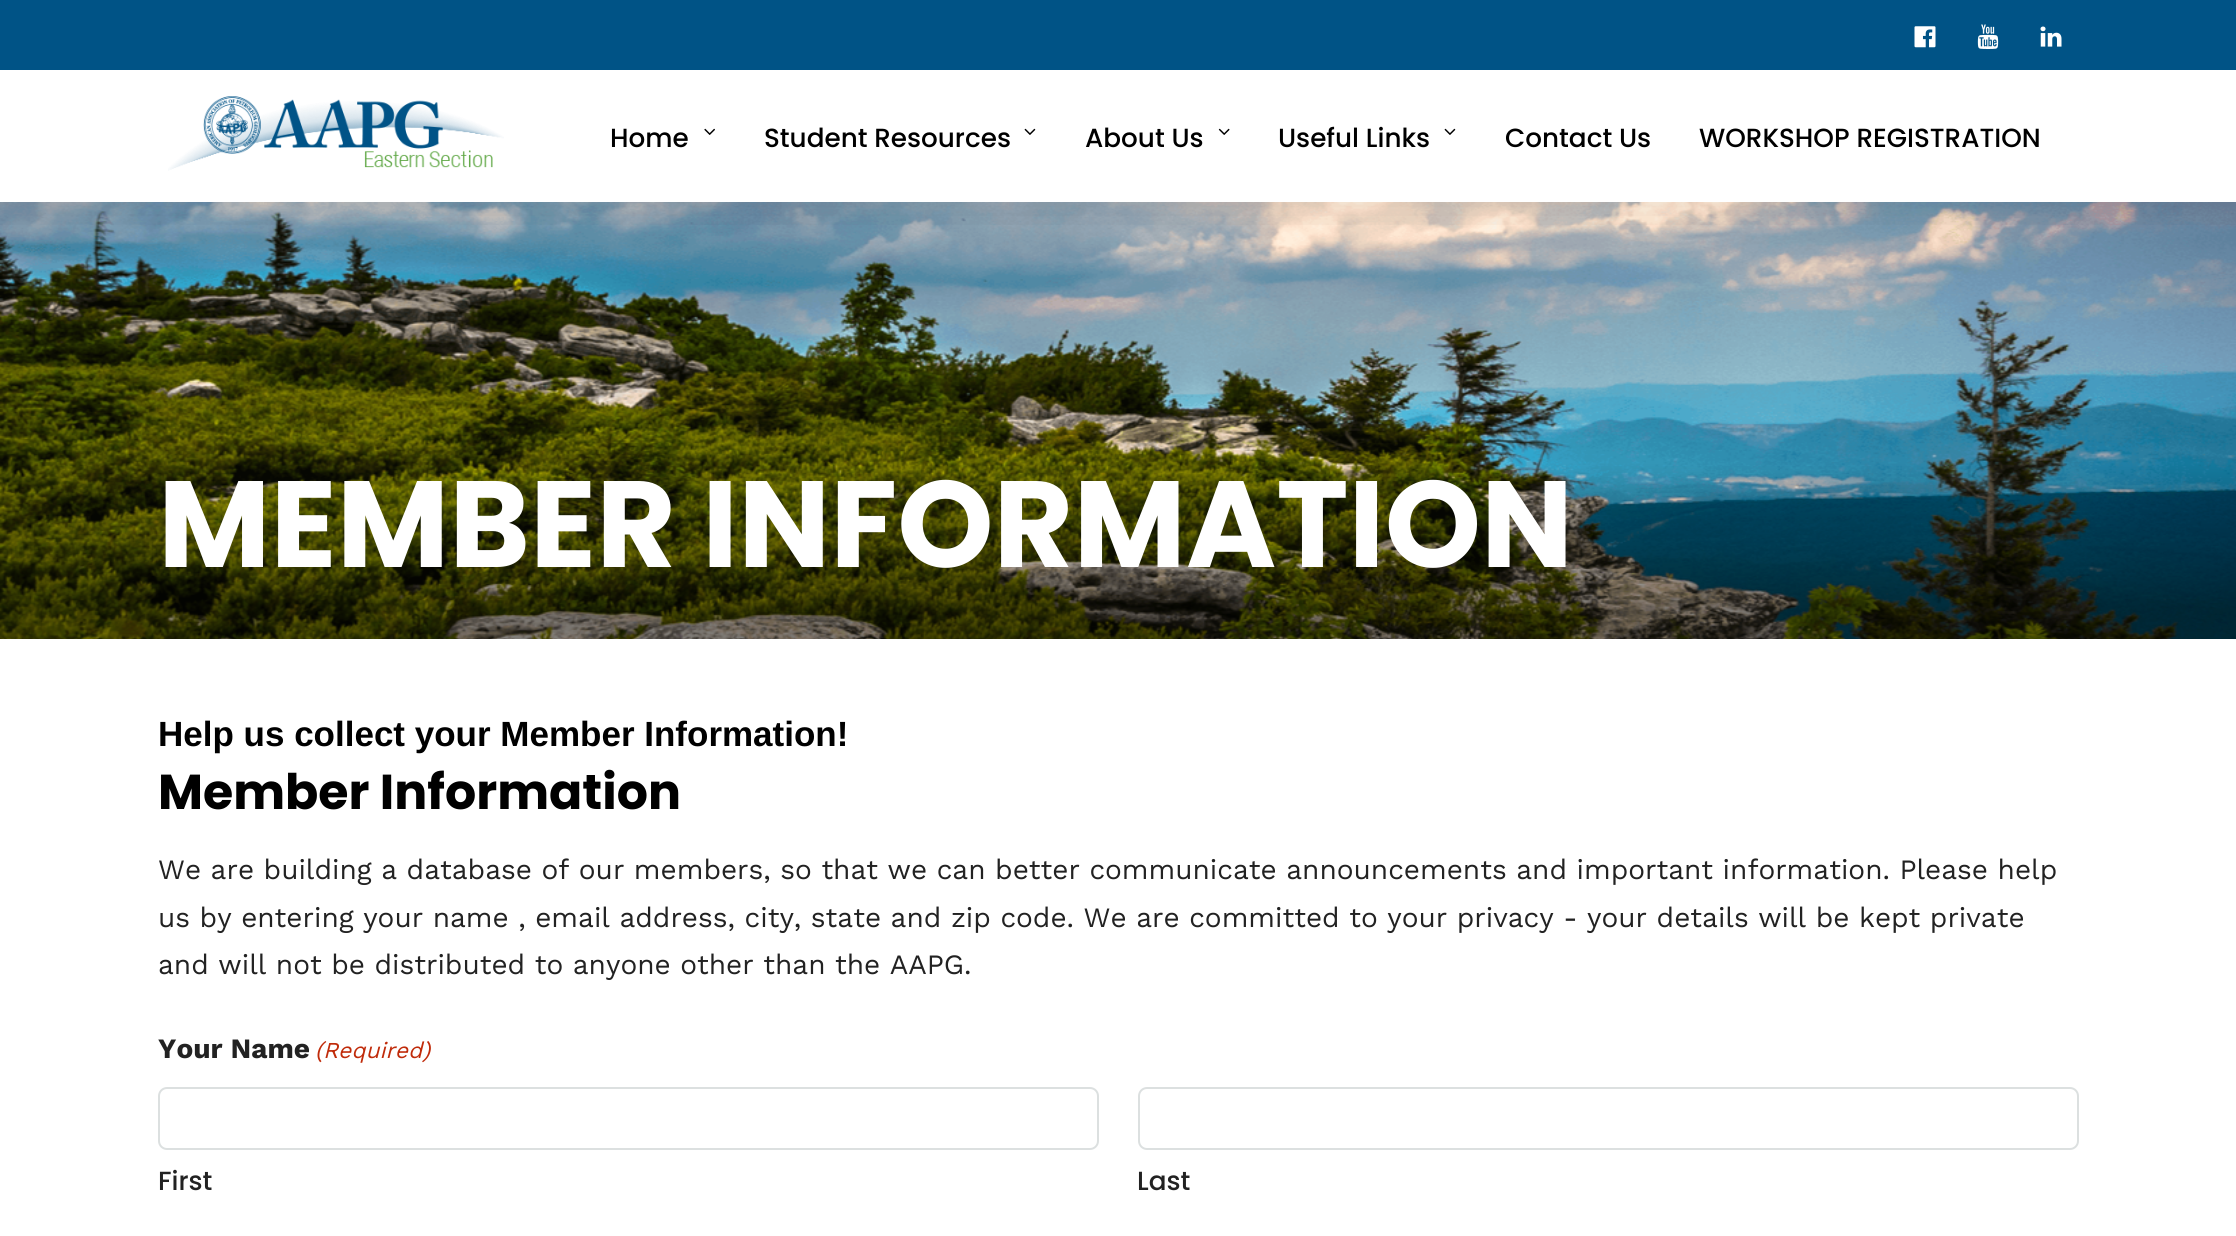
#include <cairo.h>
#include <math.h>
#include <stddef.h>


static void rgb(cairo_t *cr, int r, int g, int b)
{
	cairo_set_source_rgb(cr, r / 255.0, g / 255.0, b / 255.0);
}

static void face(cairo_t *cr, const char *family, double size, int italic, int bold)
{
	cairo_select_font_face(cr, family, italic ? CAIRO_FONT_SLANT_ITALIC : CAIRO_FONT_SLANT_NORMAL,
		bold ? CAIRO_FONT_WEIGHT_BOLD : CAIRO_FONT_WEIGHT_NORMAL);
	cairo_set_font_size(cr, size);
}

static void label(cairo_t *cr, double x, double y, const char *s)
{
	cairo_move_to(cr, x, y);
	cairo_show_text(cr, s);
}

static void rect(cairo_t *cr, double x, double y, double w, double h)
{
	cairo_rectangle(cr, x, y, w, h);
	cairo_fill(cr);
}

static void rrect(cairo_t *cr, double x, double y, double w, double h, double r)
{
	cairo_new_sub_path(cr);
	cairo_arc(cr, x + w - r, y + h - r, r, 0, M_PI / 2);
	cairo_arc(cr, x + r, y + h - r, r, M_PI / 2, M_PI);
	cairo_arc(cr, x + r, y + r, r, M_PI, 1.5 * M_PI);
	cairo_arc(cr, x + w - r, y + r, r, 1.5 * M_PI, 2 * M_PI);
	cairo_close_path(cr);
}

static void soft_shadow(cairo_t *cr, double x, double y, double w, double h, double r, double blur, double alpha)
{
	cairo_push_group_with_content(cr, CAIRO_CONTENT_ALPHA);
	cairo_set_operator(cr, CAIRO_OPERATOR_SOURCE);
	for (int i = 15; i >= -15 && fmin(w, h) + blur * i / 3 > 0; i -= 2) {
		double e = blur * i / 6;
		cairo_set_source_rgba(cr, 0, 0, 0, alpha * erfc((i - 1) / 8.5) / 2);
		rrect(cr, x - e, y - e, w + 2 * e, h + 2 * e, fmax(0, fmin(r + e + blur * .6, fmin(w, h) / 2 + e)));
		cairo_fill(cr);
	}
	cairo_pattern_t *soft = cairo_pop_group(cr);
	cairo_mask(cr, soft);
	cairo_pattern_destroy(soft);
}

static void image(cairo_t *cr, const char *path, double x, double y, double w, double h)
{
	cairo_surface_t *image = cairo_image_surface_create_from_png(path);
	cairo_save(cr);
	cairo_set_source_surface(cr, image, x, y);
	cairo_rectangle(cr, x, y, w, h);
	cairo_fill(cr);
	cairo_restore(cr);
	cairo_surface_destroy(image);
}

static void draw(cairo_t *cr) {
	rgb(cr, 255, 255, 255);
	cairo_paint(cr);
	image(cr, "image7.png", 0, 202, 2236, 437);
	cairo_save(cr);
	cairo_rectangle(cr, 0, 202, 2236, 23);
	cairo_clip(cr);
	rgb(cr, 0, 0, 0);
	soft_shadow(cr, 0, 72, 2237, 131, 0, 26, 0.1);
	cairo_restore(cr);
	rgb(cr, 0, 83, 134);
	rect(cr, 0, 0, 2236, 70);
	image(cr, "image0.png", 1914, 26, 22, 22);
	image(cr, "image1.png", 1977, 24, 22, 25);
	image(cr, "image2.png", 2040, 26, 22, 21);
	rgb(cr, 255, 255, 255);
	rect(cr, 0, 201, 2236, 1);
	image(cr, "image3.png", 168, 96, 336, 75);
	face(cr, "Poppins Medium", 26.25, 0, 0);
	rgb(cr, 0, 0, 0);
	label(cr, 610, 147, "Home");
	image(cr, "image4.png", 704, 128, 11, 7);
	label(cr, 764, 147, "Student Resources");
	image(cr, "image5.png", 1024, 128, 12, 7);
	label(cr, 1085, 147, "About Us");
	image(cr, "image6.png", 1218, 128, 12, 7);
	label(cr, 1278, 147, "Useful Links");
	image(cr, "image5.png", 1444, 128, 12, 7);
	label(cr, 1505, 147, "Contact Us");
	label(cr, 1699, 147, "WORKSHOP REGISTRATION");
	face(cr, "Poppins", 122.5, 0, 1);
	rgb(cr, 255, 255, 255);
	label(cr, 158, 567, "MEMBER INFORMATION");
	face(cr, "Liberation Sans", 35, 0, 1);
	rgb(cr, 0, 0, 0);
	label(cr, 158, 746, "Help us collect your Member Information!");
	face(cr, "Poppins", 49, 0, 1);
	label(cr, 158, 809, "Member Information");
	face(cr, "Work Sans", 28, 0, 0);
	rgb(cr, 34, 34, 34);
	label(cr, 158, 879, "We are building a database of our members, so that we can better communicate announcements and important information. Please help");
	label(cr, 158, 927, "us by entering your name , email address, city, state and zip code. We are committed to your privacy - your details will be kept private");
	label(cr, 158, 974, "and will not be distributed to anyone other than the AAPG.");
	face(cr, "Work Sans", 28, 0, 1);
	label(cr, 158, 1058, "Your Name");
	face(cr, "Work Sans", 22.75, 1, 0);
	rgb(cr, 192, 43, 10);
	label(cr, 315, 1058, "(Required)");
	rrect(cr, 159, 1088, 939, 61, 8);
	rgb(cr, 220, 224, 224);
	cairo_stroke(cr);
	face(cr, "Poppins Medium", 26.25, 0, 0);
	rgb(cr, 34, 34, 34);
	label(cr, 158, 1190, "First");
	rrect(cr, 1139, 1088, 939, 61, 8);
	rgb(cr, 220, 224, 224);
	cairo_stroke(cr);
	rgb(cr, 34, 34, 34);
	label(cr, 1137, 1190, "Last");
}

int main(void) {
	cairo_surface_t *surface = cairo_image_surface_create(CAIRO_FORMAT_RGB24, 2236, 1236);
	cairo_t *cr = cairo_create(surface);
	cairo_font_options_t *options = cairo_font_options_create();
	cairo_font_options_set_hint_metrics(options, CAIRO_HINT_METRICS_OFF);
	cairo_font_options_set_hint_style(options, CAIRO_HINT_STYLE_NONE);
	cairo_set_font_options(cr, options);
	cairo_set_miter_limit(cr, 4);
	draw(cr);
	cairo_surface_write_to_png(surface, "render.png");
	cairo_font_options_destroy(options);
	cairo_destroy(cr);
	cairo_surface_destroy(surface);
	return 0;
}
